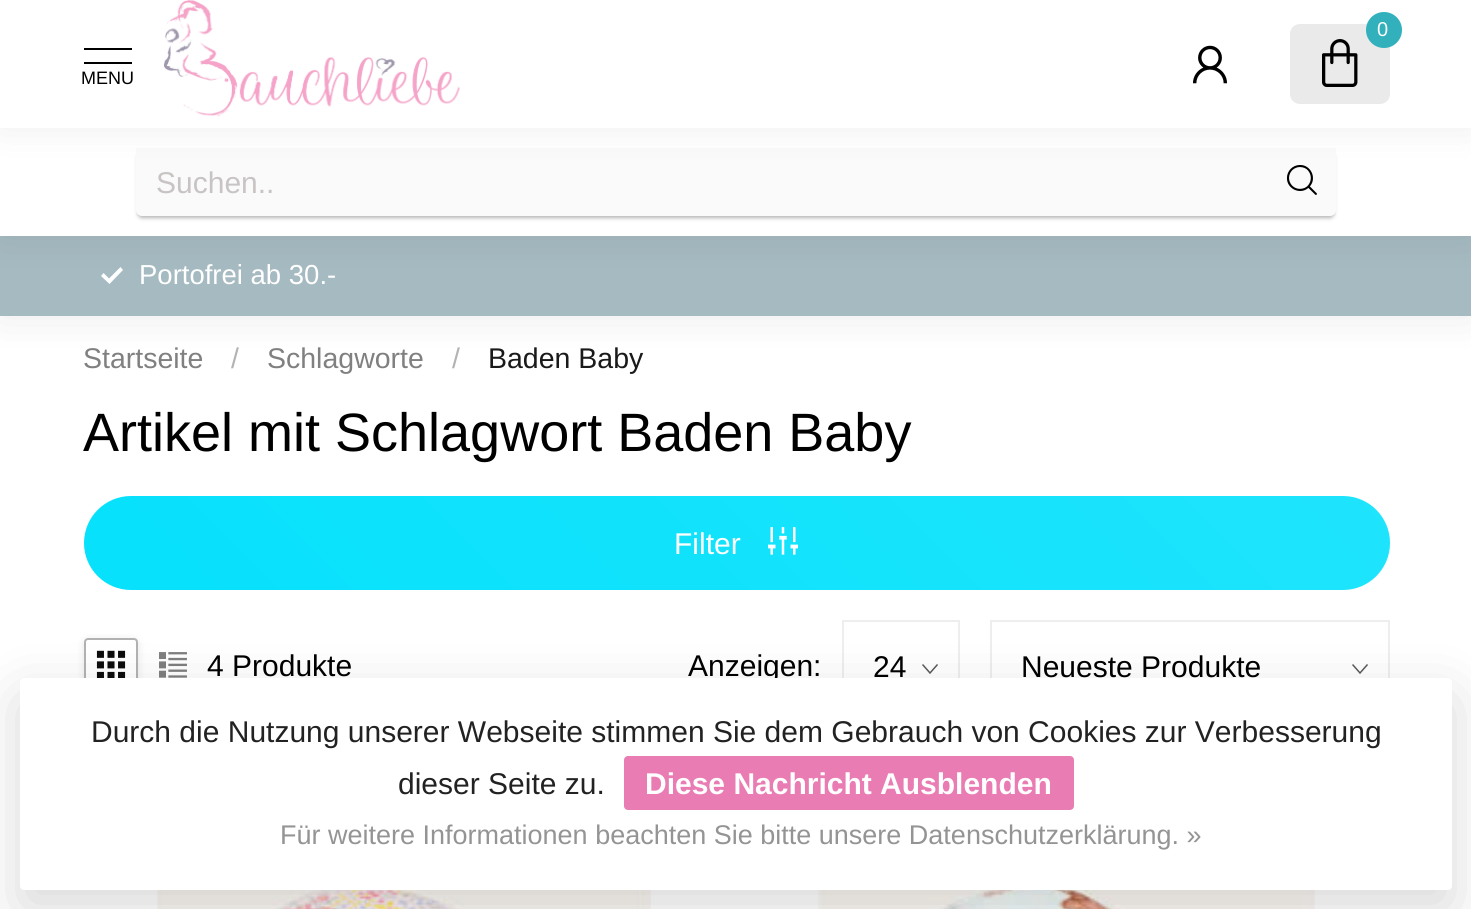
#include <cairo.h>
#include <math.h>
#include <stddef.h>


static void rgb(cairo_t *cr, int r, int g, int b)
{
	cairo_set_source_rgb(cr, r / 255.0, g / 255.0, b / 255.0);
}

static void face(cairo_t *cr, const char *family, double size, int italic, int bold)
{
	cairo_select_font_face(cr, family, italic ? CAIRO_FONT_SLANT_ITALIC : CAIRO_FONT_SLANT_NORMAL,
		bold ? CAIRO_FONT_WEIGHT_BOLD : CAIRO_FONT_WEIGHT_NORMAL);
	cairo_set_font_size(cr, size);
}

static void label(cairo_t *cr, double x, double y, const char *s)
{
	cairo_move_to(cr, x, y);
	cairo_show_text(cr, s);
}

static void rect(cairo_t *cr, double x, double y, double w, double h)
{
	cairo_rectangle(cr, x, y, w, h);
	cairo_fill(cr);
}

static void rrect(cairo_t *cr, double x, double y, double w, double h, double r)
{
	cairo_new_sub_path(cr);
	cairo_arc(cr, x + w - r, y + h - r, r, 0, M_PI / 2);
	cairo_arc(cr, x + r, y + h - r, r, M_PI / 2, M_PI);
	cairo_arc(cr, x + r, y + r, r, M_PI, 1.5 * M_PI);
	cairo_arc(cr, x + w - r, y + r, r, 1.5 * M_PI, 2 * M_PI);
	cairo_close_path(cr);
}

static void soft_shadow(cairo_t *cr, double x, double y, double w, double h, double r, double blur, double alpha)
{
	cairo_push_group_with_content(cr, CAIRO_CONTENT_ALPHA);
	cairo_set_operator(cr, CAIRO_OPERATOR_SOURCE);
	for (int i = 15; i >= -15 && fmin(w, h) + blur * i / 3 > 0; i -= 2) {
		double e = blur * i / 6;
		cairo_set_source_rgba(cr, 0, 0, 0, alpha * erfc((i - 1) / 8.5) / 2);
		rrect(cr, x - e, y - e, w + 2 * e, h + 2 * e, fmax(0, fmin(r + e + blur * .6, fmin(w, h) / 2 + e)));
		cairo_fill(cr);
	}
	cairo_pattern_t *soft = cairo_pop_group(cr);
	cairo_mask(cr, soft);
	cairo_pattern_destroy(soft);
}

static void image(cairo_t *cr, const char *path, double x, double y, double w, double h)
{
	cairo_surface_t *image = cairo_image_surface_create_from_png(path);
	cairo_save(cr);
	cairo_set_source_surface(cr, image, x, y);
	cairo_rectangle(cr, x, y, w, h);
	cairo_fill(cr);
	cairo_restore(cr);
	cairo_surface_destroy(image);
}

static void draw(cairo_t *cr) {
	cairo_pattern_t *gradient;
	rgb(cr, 255, 255, 255);
	cairo_paint(cr);
	rgb(cr, 0, 0, 0);
	soft_shadow(cr, 0, 236, 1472, 80, 0, 22, 0.08);
	rgb(cr, 166, 186, 193);
	rect(cr, 0, 236, 1471, 80);
	rgb(cr, 255, 255, 255);
	cairo_new_path(cr);
	cairo_move_to(cr, 109.5, 284);
	cairo_line_to(cr, 101, 276);
	cairo_line_to(cr, 103.5, 273);
	cairo_line_to(cr, 109, 278.5);
	cairo_line_to(cr, 120.5, 267);
	cairo_line_to(cr, 123, 270);
	cairo_close_path(cr);
	cairo_fill(cr);
	rgb(cr, 0, 0, 0);
	soft_shadow(cr, 0, 128, 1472, 108, 0, 22, 0.08);
	rgb(cr, 255, 255, 255);
	rect(cr, 0, 128, 1471, 108);
	rgb(cr, 155, 155, 155);
	soft_shadow(cr, 138, 154, 1196, 64, 4, 2, 0.75);
	rgb(cr, 255, 255, 255);
	rrect(cr, 136, 148, 1200, 68, 6);
	cairo_fill(cr);
	cairo_set_source_rgba(cr, 0.604, 0.565, 0.565, 0.05);
	rect(cr, 136, 148, 1200, 68);
	image(cr, "image3.png", 1286, 165, 31, 30);
	rgb(cr, 0, 0, 0);
	soft_shadow(cr, 0, 0, 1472, 128, 0, 20, 0.07);
	rgb(cr, 255, 255, 255);
	rect(cr, 0, 0, 1471, 128);
	rgb(cr, 234, 234, 234);
	rrect(cr, 1290, 24, 100, 80, 10);
	cairo_fill(cr);
	rgb(cr, 50, 177, 188);
	cairo_arc(cr, 1384, 30, 18, 0, 2 * M_PI);
	cairo_fill(cr);
	face(cr, "Liberation Sans", 20, 0, 0);
	rgb(cr, 255, 255, 255);
	label(cr, 1377, 36, "0");
	image(cr, "image0.png", 1322, 39, 36, 48);
	image(cr, "image1.png", 1193, 45, 34, 39);
	rgb(cr, 0, 0, 0);
	rect(cr, 84, 48, 48, 2);
	rect(cr, 84, 62, 48, 2);
	face(cr, "Liberation Sans", 18, 0, 0);
	label(cr, 81, 84, "MENU");
	image(cr, "image2.png", 164, 0, 296, 117);
	face(cr, "Liberation Sans", 30, 0, 0);
	rgb(cr, 201, 196, 196);
	label(cr, 156, 193, "Suchen..");
	face(cr, "Liberation Sans", 27.5, 0, 0);
	rgb(cr, 255, 255, 255);
	label(cr, 139, 284, "Portofrei ab 30.-");
	face(cr, "Liberation Sans", 28.5, 0, 0);
	rgb(cr, 128, 128, 128);
	label(cr, 83, 368, "Startseite");
	rgb(cr, 179, 179, 179);
	label(cr, 231, 368, "/");
	rgb(cr, 128, 128, 128);
	label(cr, 267, 368, "Schlagworte");
	rgb(cr, 179, 179, 179);
	label(cr, 452, 368, "/");
	rgb(cr, 26, 26, 26);
	label(cr, 488, 368, "Baden Baby");
	face(cr, "Liberation Sans", 54, 0, 0);
	rgb(cr, 0, 0, 0);
	label(cr, 83, 451, "Artikel mit Schlagwort Baden Baby");
	gradient = cairo_pattern_create_linear(387, 893, 1087, 193);
	cairo_pattern_add_color_stop_rgba(gradient, 0, 0.024, 0.882, 0.988, 1);
	cairo_pattern_add_color_stop_rgba(gradient, 1, 0.118, 0.894, 0.988, 1);
	cairo_set_source(cr, gradient);
	cairo_pattern_destroy(gradient);
	rrect(cr, 84, 496, 1306, 94, 47);
	cairo_fill(cr);
	face(cr, "Liberation Sans", 30, 0, 0);
	rgb(cr, 255, 255, 255);
	label(cr, 674, 554, "Filter");
	image(cr, "image4.png", 768, 527, 30, 28);
	cairo_save(cr);
	cairo_set_fill_rule(cr, CAIRO_FILL_RULE_EVEN_ODD);
	cairo_new_path(cr);
	cairo_move_to(cr, 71, 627);
	cairo_line_to(cr, 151, 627);
	cairo_line_to(cr, 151, 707);
	cairo_line_to(cr, 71, 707);
	cairo_close_path(cr);
	cairo_move_to(cr, 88, 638);
	cairo_line_to(cr, 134, 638);
	cairo_curve_to(cr, 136, 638, 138, 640, 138, 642);
	cairo_line_to(cr, 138, 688);
	cairo_curve_to(cr, 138, 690, 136, 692, 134, 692);
	cairo_line_to(cr, 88, 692);
	cairo_curve_to(cr, 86, 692, 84, 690, 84, 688);
	cairo_line_to(cr, 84, 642);
	cairo_curve_to(cr, 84, 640, 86, 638, 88, 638);
	cairo_close_path(cr);
	cairo_clip(cr);
	rgb(cr, 0, 0, 0);
	soft_shadow(cr, 84, 640, 54, 54, 4, 4, 0.1);
	cairo_restore(cr);
	rrect(cr, 85, 639, 52, 52, 3);
	rgb(cr, 178, 178, 178);
	cairo_stroke(cr);
	image(cr, "image5.png", 96, 650, 30, 28);
	image(cr, "image6.png", 159, 652, 28, 26);
	rgb(cr, 0, 0, 0);
	label(cr, 207, 676, "4 Produkte");
	label(cr, 688, 676, "Anzeigen:");
	cairo_new_path(cr);
	cairo_move_to(cr, 937.5, 664.5);
	cairo_line_to(cr, 930, 673);
	cairo_line_to(cr, 922.5, 664.5);
	rgb(cr, 89, 89, 89);
	cairo_set_line_width(cr, 1.5);
	cairo_stroke(cr);
	cairo_rectangle(cr, 843, 621, 116, 88);
	rgb(cr, 238, 238, 238);
	cairo_set_line_width(cr, 2);
	cairo_stroke(cr);
	rgb(cr, 0, 0, 0);
	label(cr, 873, 677, "24");
	cairo_new_path(cr);
	cairo_move_to(cr, 1367.5, 664.5);
	cairo_line_to(cr, 1360, 673);
	cairo_line_to(cr, 1352.5, 664.5);
	rgb(cr, 89, 89, 89);
	cairo_set_line_width(cr, 1.5);
	cairo_stroke(cr);
	cairo_rectangle(cr, 991, 621, 398, 88);
	rgb(cr, 238, 238, 238);
	cairo_set_line_width(cr, 2);
	cairo_stroke(cr);
	rgb(cr, 0, 0, 0);
	label(cr, 1021, 677, "Neueste Produkte");
	image(cr, "image7.png", 157, 890, 494, 19);
	image(cr, "image8.png", 818, 890, 497, 19);
	rgb(cr, 0, 0, 0);
	soft_shadow(cr, 20, 698, 1432, 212, 4, 30, 0.15);
	rgb(cr, 255, 255, 255);
	rrect(cr, 20, 678, 1432, 212, 4);
	cairo_fill(cr);
	rgb(cr, 34, 34, 34);
	label(cr, 91, 742, "Durch die Nutzung unserer Webseite stimmen Sie dem Gebrauch von Cookies zur Verbesserung");
	label(cr, 398, 794, "dieser Seite zu.");
	rgb(cr, 233, 124, 179);
	rrect(cr, 624, 756, 450, 54, 4);
	cairo_fill(cr);
	face(cr, "Liberation Sans", 30, 0, 1);
	rgb(cr, 255, 255, 255);
	label(cr, 645, 794, "Diese Nachricht Ausblenden");
	face(cr, "Liberation Sans", 27, 0, 0);
	rgb(cr, 148, 148, 148);
	label(cr, 280, 844, "Für weitere Informationen beachten Sie bitte unsere Datenschutzerklärung. »");
}

int main(void) {
	cairo_surface_t *surface = cairo_image_surface_create(CAIRO_FORMAT_RGB24, 1471, 909);
	cairo_t *cr = cairo_create(surface);
	cairo_font_options_t *options = cairo_font_options_create();
	cairo_font_options_set_hint_metrics(options, CAIRO_HINT_METRICS_OFF);
	cairo_font_options_set_hint_style(options, CAIRO_HINT_STYLE_NONE);
	cairo_set_font_options(cr, options);
	cairo_set_miter_limit(cr, 4);
	draw(cr);
	cairo_surface_write_to_png(surface, "render.png");
	cairo_font_options_destroy(options);
	cairo_destroy(cr);
	cairo_surface_destroy(surface);
	return 0;
}
